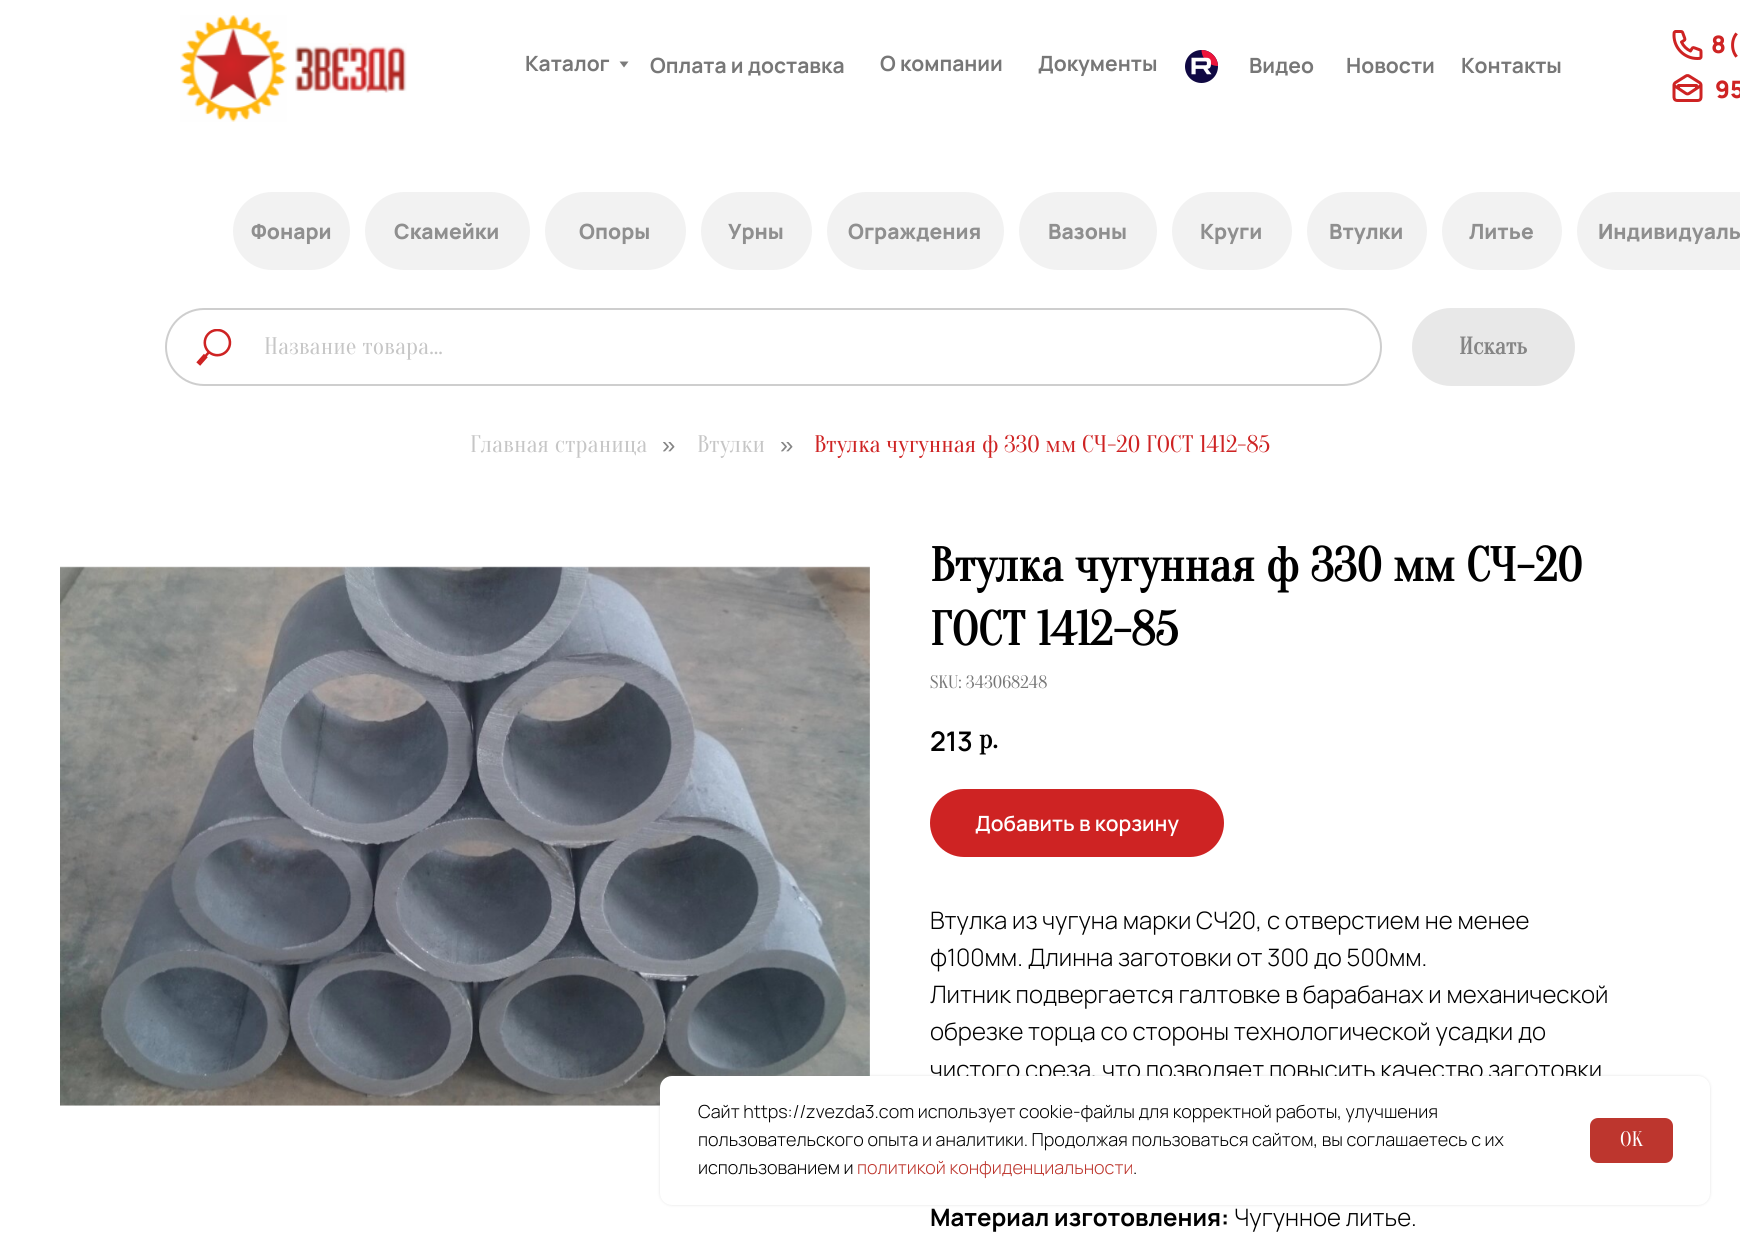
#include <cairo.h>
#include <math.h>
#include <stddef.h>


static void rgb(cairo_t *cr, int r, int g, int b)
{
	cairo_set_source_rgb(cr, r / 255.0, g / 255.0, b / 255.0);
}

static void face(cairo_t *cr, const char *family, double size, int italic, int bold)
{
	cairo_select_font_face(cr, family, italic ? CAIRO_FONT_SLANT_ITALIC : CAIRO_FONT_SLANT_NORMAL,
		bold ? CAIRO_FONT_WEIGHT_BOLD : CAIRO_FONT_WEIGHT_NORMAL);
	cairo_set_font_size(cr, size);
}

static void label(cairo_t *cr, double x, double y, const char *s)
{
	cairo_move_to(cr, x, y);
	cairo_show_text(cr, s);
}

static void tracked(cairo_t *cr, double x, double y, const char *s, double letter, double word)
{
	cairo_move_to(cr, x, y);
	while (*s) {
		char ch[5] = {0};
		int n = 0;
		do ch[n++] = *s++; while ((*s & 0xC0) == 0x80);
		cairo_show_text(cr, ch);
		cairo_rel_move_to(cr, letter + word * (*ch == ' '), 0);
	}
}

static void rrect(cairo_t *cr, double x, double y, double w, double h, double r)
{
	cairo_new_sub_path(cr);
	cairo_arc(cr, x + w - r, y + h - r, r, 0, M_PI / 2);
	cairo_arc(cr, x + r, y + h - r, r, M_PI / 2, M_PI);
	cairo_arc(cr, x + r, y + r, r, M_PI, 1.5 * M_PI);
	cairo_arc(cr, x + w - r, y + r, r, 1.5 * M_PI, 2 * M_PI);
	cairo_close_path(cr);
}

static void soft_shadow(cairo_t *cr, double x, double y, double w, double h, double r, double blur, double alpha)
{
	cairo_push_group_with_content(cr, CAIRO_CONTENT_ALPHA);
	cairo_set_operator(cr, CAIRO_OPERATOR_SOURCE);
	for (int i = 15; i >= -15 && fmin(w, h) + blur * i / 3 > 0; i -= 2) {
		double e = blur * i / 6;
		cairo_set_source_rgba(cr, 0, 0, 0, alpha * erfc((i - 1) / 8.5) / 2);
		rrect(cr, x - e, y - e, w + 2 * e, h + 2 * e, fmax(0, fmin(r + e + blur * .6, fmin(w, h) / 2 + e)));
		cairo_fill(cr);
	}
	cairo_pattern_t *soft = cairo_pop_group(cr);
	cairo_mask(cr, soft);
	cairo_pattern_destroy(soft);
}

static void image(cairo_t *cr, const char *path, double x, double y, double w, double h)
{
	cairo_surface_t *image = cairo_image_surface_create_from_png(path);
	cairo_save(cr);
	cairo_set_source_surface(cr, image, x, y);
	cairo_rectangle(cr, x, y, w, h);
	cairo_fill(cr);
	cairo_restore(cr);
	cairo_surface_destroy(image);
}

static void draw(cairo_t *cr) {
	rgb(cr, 255, 255, 255);
	cairo_paint(cr);
	image(cr, "image0.png", 180, 15, 107, 107);
	image(cr, "image1.png", 295, 43, 112, 50);
	face(cr, "Manrope", 21, 0, 1);
	rgb(cr, 119, 119, 119);
	label(cr, 525, 71, "Каталог");
	rgb(cr, 123, 123, 123);
	cairo_new_path(cr);
	cairo_move_to(cr, 619.5, 61.5);
	cairo_line_to(cr, 628.5, 61.5);
	cairo_line_to(cr, 624, 67.5);
	cairo_close_path(cr);
	cairo_fill(cr);
	rgb(cr, 119, 119, 119);
	label(cr, 650, 73, "Оплата и доставка");
	label(cr, 880, 71, "О компании");
	label(cr, 1038, 71, "Документы");
	image(cr, "image2.png", 1185, 50, 33, 33);
	label(cr, 1249, 73, "Видео");
	label(cr, 1346, 73, "Новости");
	label(cr, 1461, 73, "Контакты");
	image(cr, "image3.png", 1672, 30, 31, 30);
	face(cr, "Manrope ExtraBold", 24, 0, 0);
	rgb(cr, 206, 35, 35);
	tracked(cr, 1711, 53, "8 (", -1.5, 0);
	image(cr, "image4.png", 1672, 74, 31, 28);
	label(cr, 1715, 98, "95");
	rgb(cr, 242, 242, 242);
	rrect(cr, 233, 192, 117, 78, 39);
	cairo_fill(cr);
	face(cr, "Manrope ExtraBold", 21, 0, 0);
	rgb(cr, 143, 143, 143);
	label(cr, 251, 239, "Фонари");
	rgb(cr, 242, 242, 242);
	rrect(cr, 365, 192, 165, 78, 39);
	cairo_fill(cr);
	rgb(cr, 143, 143, 143);
	label(cr, 394, 239, "Скамейки");
	rgb(cr, 242, 242, 242);
	rrect(cr, 545, 192, 141, 78, 39);
	cairo_fill(cr);
	rgb(cr, 143, 143, 143);
	label(cr, 579, 239, "Опоры");
	rgb(cr, 242, 242, 242);
	rrect(cr, 701, 192, 111, 78, 39);
	cairo_fill(cr);
	rgb(cr, 143, 143, 143);
	label(cr, 728, 239, "Урны");
	rgb(cr, 242, 242, 242);
	rrect(cr, 827, 192, 177, 78, 39);
	cairo_fill(cr);
	rgb(cr, 143, 143, 143);
	label(cr, 848, 239, "Ограждения");
	rgb(cr, 242, 242, 242);
	rrect(cr, 1019, 192, 138, 78, 39);
	cairo_fill(cr);
	rgb(cr, 143, 143, 143);
	label(cr, 1048, 239, "Вазоны");
	rgb(cr, 242, 242, 242);
	rrect(cr, 1172, 192, 120, 78, 39);
	cairo_fill(cr);
	rgb(cr, 143, 143, 143);
	label(cr, 1200, 239, "Круги");
	rgb(cr, 242, 242, 242);
	rrect(cr, 1307, 192, 120, 78, 39);
	cairo_fill(cr);
	rgb(cr, 143, 143, 143);
	label(cr, 1329, 239, "Втулки");
	rgb(cr, 242, 242, 242);
	rrect(cr, 1442, 192, 120, 78, 39);
	cairo_fill(cr);
	rgb(cr, 143, 143, 143);
	label(cr, 1469, 239, "Литье");
	rgb(cr, 242, 242, 242);
	cairo_new_path(cr);
	cairo_move_to(cr, 1616, 192);
	cairo_line_to(cr, 1740, 192);
	cairo_line_to(cr, 1740, 270);
	cairo_line_to(cr, 1616, 270);
	cairo_curve_to(cr, 1594.5, 270, 1577, 252.5, 1577, 231);
	cairo_curve_to(cr, 1577, 209.5, 1594.5, 192, 1616, 192);
	cairo_close_path(cr);
	cairo_fill(cr);
	rgb(cr, 143, 143, 143);
	label(cr, 1598, 239, "Индивидуаль");
	rrect(cr, 166, 309, 1215, 76, 38);
	rgb(cr, 206, 206, 206);
	cairo_stroke(cr);
	image(cr, "image5.png", 196, 329, 36, 37);
	face(cr, "Oranienbaum", 24, 0, 0);
	rgb(cr, 198, 198, 198);
	label(cr, 264, 354, "Название товара...");
	rgb(cr, 232, 232, 232);
	rrect(cr, 1412, 308, 163, 78, 39);
	cairo_fill(cr);
	face(cr, "Oranienbaum", 24, 0, 1);
	rgb(cr, 133, 133, 133);
	label(cr, 1459, 354, "Искать");
	face(cr, "Oranienbaum", 24, 0, 0);
	rgb(cr, 198, 198, 198);
	label(cr, 470, 452, "Главная страница");
	face(cr, "Liberation Sans", 24, 0, 0);
	rgb(cr, 133, 133, 133);
	label(cr, 662, 453, "»");
	face(cr, "Oranienbaum", 24, 0, 0);
	rgb(cr, 198, 198, 198);
	label(cr, 697, 452, "Втулки");
	face(cr, "Liberation Sans", 24, 0, 0);
	rgb(cr, 133, 133, 133);
	label(cr, 780, 453, "»");
	face(cr, "Oranienbaum", 24, 0, 0);
	rgb(cr, 206, 35, 35);
	label(cr, 814, 452, "Втулка чугунная ф 330 мм СЧ-20 ГОСТ 1412-85");
	image(cr, "image6.png", 60, 566, 810, 540);
	face(cr, "Oranienbaum", 48, 0, 1);
	rgb(cr, 0, 0, 0);
	label(cr, 930, 581, "Втулка чугунная ф 330 мм СЧ-20");
	label(cr, 930, 645, "ГОСТ 1412-85");
	face(cr, "Oranienbaum", 18, 0, 0);
	rgb(cr, 119, 119, 119);
	label(cr, 930, 688, "SKU: 343068248");
	face(cr, "Manrope SemiBold", 27, 0, 0);
	rgb(cr, 0, 0, 0);
	label(cr, 930, 751, "213");
	face(cr, "Oranienbaum", 27, 0, 1);
	label(cr, 979, 748, "р.");
	rgb(cr, 206, 35, 35);
	rrect(cr, 930, 789, 294, 68, 34);
	cairo_fill(cr);
	face(cr, "Manrope SemiBold", 21, 0, 0);
	rgb(cr, 255, 255, 255);
	label(cr, 975, 831, "Добавить в корзину");
	face(cr, "Manrope Light", 24, 0, 0);
	rgb(cr, 0, 0, 0);
	label(cr, 930, 929, "Втулка из чугуна марки СЧ20, с отверстием не менее");
	label(cr, 930, 966, "ф100мм. Длинна заготовки от 300 до 500мм.");
	label(cr, 930, 1003, "Литник подвергается галтовке в барабанах и механической");
	label(cr, 930, 1040, "обрезке торца со стороны технологической усадки до");
	label(cr, 930, 1078, "чистого среза, что позволяет повысить качество заготовки");
	face(cr, "Manrope", 24, 0, 1);
	label(cr, 930, 1226, "Материал изготовления:");
	face(cr, "Manrope Light", 24, 0, 0);
	label(cr, 1234, 1226, "Чугунное литье.");
	rgb(cr, 143, 143, 143);
	soft_shadow(cr, 660, 1076, 1050, 129, 12, 1.5, 0.25);
	rgb(cr, 255, 255, 255);
	rrect(cr, 660, 1076, 1050, 129, 12);
	cairo_fill(cr);
	face(cr, "Manrope Light", 18, 0, 0);
	rgb(cr, 0, 0, 0);
	label(cr, 698, 1118, "Сайт https://zvezda3.com использует cookie-файлы для корректной работы, улучшения");
	label(cr, 698, 1146, "пользовательского опыта и аналитики. Продолжая пользоваться сайтом, вы соглашаетесь с их");
	label(cr, 698, 1174, "использованием и");
	rgb(cr, 189, 54, 46);
	label(cr, 857, 1174, "политикой конфиденциальности");
	rgb(cr, 0, 0, 0);
	label(cr, 1133, 1174, ".");
	rgb(cr, 189, 54, 46);
	rrect(cr, 1590, 1118, 83, 45, 8);
	cairo_fill(cr);
	face(cr, "Oranienbaum", 21, 0, 0);
	rgb(cr, 255, 255, 255);
	label(cr, 1620, 1146, "OK");
}

int main(void) {
	cairo_surface_t *surface = cairo_image_surface_create(CAIRO_FORMAT_RGB24, 1740, 1249);
	cairo_t *cr = cairo_create(surface);
	cairo_font_options_t *options = cairo_font_options_create();
	cairo_font_options_set_hint_metrics(options, CAIRO_HINT_METRICS_OFF);
	cairo_font_options_set_hint_style(options, CAIRO_HINT_STYLE_NONE);
	cairo_set_font_options(cr, options);
	cairo_set_miter_limit(cr, 4);
	draw(cr);
	cairo_surface_write_to_png(surface, "render.png");
	cairo_font_options_destroy(options);
	cairo_destroy(cr);
	cairo_surface_destroy(surface);
	return 0;
}
